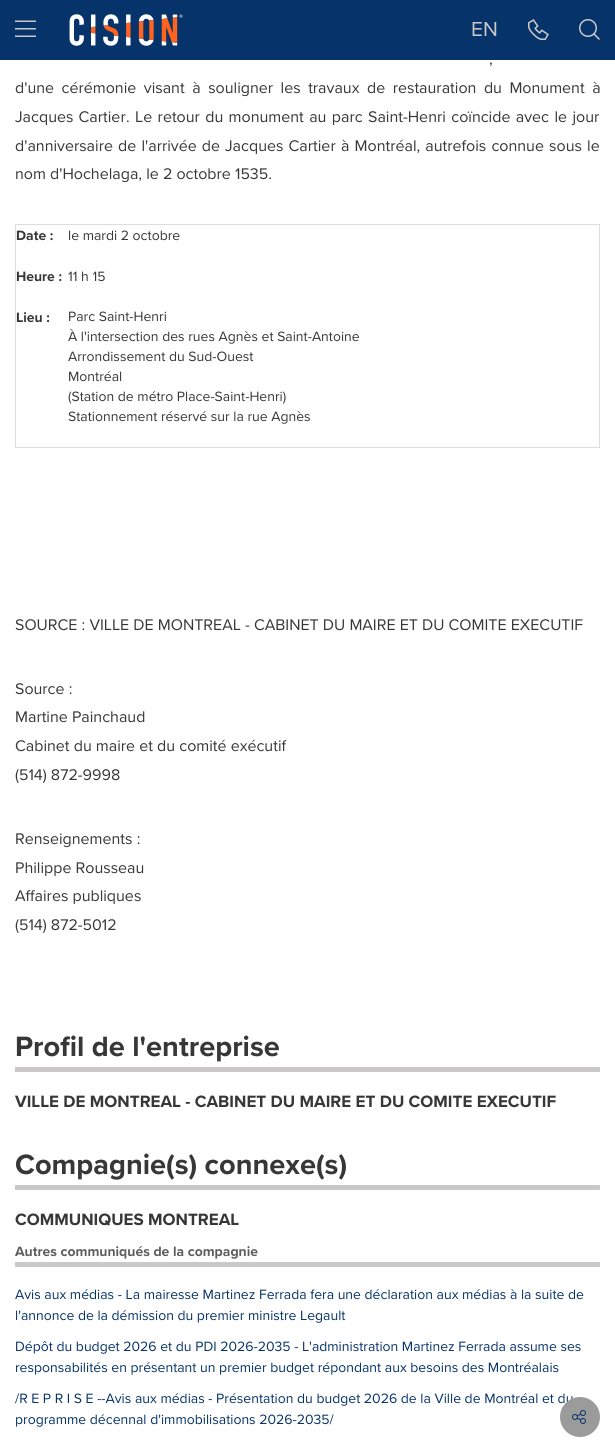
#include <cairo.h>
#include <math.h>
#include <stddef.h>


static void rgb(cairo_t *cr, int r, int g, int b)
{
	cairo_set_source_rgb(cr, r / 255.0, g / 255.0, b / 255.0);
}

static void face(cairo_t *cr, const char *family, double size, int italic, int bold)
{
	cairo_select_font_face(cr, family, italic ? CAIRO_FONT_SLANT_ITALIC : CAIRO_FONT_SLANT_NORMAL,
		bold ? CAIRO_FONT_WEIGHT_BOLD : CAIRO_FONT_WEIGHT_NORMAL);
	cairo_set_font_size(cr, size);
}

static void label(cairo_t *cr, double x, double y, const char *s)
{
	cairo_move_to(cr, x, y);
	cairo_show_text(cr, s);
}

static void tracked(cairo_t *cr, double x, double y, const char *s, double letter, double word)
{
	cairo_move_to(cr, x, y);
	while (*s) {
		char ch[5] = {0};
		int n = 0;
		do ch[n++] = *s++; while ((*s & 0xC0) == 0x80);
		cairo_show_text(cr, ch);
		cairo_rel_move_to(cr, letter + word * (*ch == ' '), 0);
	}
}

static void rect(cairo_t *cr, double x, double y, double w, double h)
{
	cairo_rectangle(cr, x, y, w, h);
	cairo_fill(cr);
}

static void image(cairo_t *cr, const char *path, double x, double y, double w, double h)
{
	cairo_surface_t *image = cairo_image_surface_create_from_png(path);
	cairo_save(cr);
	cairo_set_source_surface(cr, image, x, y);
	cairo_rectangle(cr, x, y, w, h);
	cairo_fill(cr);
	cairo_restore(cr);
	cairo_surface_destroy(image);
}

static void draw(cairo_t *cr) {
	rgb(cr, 255, 255, 255);
	cairo_paint(cr);
	rgb(cr, 6, 51, 105);
	rect(cr, 0, 0, 615, 60);
	image(cr, "image0.png", 15, 20, 21, 17);
	image(cr, "image1.png", 69, 14, 114, 32);
	face(cr, "Proxima Nova", 21, 0, 0);
	rgb(cr, 202, 200, 200);
	label(cr, 471, 36, "EN");
	image(cr, "image2.png", 528, 19, 21, 21);
	image(cr, "image3.png", 579, 19, 21, 21);
	face(cr, "Proxima Nova", 16, 0, 0);
	rgb(cr, 55, 55, 55);
	tracked(cr, 489, 64, ",", 0, 3);
	tracked(cr, 15, 93, "d'une cérémonie visant à souligner les travaux de restauration du Monument à", 0, 3.4);
	tracked(cr, 15, 122, "Jacques Cartier", 0, 1);
	tracked(cr, 126, 122, ". Le retour du monument au parc Saint-Henri coïncide avec le jour", 0, 1.25);
	tracked(cr, 15, 151, "d'anniversaire de l'arrivée de", 0, 1);
	tracked(cr, 225, 151, "Jacques Cartier", 0, 1);
	tracked(cr, 341, 151, "à Montréal, autrefois connue sous le", 0, 1);
	label(cr, 15, 179, "nom d'Hochelaga, le 2 octobre 1535.");
	cairo_rectangle(cr, 15.5, 224.5, 584, 223);
	rgb(cr, 221, 221, 221);
	cairo_set_line_width(cr, 1);
	cairo_stroke(cr);
	face(cr, "Proxima Nova", 14, 0, 1);
	rgb(cr, 55, 55, 55);
	label(cr, 16, 240, "Date :");
	face(cr, "Proxima Nova", 14, 0, 0);
	label(cr, 68, 240, "le mardi 2 octobre");
	face(cr, "Proxima Nova", 14, 0, 1);
	label(cr, 16, 281, "Heure :");
	face(cr, "Proxima Nova", 14, 0, 0);
	label(cr, 68, 281, "11 h 15");
	face(cr, "Proxima Nova", 14, 0, 1);
	label(cr, 16, 322, "Lieu :");
	face(cr, "Proxima Nova", 14, 0, 0);
	label(cr, 68, 321, "Parc Saint-Henri");
	label(cr, 68, 341, "À l'intersection des rues Agnès et Saint-Antoine");
	label(cr, 68, 361, "Arrondissement du Sud-Ouest");
	label(cr, 68, 381, "Montréal");
	label(cr, 68, 401, "(Station de métro Place-Saint-Henri)");
	label(cr, 68, 421, "Stationnement réservé sur la rue Agnès");
	face(cr, "Proxima Nova", 16, 0, 0);
	label(cr, 15, 630, "SOURCE : VILLE DE MONTREAL - CABINET DU MAIRE ET DU COMITE EXECUTIF");
	label(cr, 15, 694, "Source :");
	label(cr, 15, 722, "Martine Painchaud");
	label(cr, 15, 751, "Cabinet du maire et du comité exécutif");
	label(cr, 15, 780, "(514) 872-9998");
	label(cr, 15, 844, "Renseignements :");
	label(cr, 15, 873, "Philippe Rousseau");
	label(cr, 15, 901, "Affaires publiques");
	label(cr, 15, 930, "(514) 872-5012");
	face(cr, "Proxima Nova", 14, 0, 0);
	rgb(cr, 6, 51, 105);
	label(cr, 15, 1403, "/R E P R I S E --Avis aux médias - Présentation du budget 2026 de la Ville de Montréal et du");
	rgb(cr, 155, 155, 155);
	cairo_new_path(cr);
	cairo_arc(cr, 580, 1417, 20, 0, 2 * M_PI);
	cairo_fill(cr);
	image(cr, "image4.png", 572, 1410, 14, 14);
	rgb(cr, 202, 200, 200);
	rect(cr, 15, 1067, 585, 5);
	face(cr, "Proxima Nova", 29, 0, 1);
	rgb(cr, 55, 55, 55);
	label(cr, 15, 1056, "Profil de l'entreprise");
	face(cr, "Proxima Nova", 17, 0, 1);
	label(cr, 15, 1107, "VILLE DE MONTREAL - CABINET DU MAIRE ET DU COMITE EXECUTIF");
	rgb(cr, 202, 200, 200);
	rect(cr, 15, 1185, 585, 5);
	face(cr, "Proxima Nova", 29, 0, 1);
	rgb(cr, 55, 55, 55);
	label(cr, 15, 1174, "Compagnie(s) connexe(s)");
	face(cr, "Proxima Nova", 17, 0, 1);
	label(cr, 15, 1225, "COMMUNIQUES MONTREAL");
	rgb(cr, 202, 200, 200);
	rect(cr, 15, 1262, 585, 5);
	face(cr, "Proxima Nova", 14, 0, 1);
	rgb(cr, 93, 93, 93);
	label(cr, 15, 1256, "Autres communiqués de la compagnie");
	face(cr, "Proxima Nova", 14, 0, 0);
	rgb(cr, 6, 51, 105);
	label(cr, 15, 1299, "Avis aux médias - La mairesse Martinez Ferrada fera une déclaration aux médias à la suite de");
	label(cr, 15, 1320, "l'annonce de la démission du premier ministre Legault");
	label(cr, 15, 1351, "Dépôt du budget 2026 et du PDI 2026-2035 - L'administration Martinez Ferrada assume ses");
	label(cr, 15, 1372, "responsabilités en présentant un premier budget répondant aux besoins des Montréalais");
	label(cr, 15, 1424, "programme décennal d'immobilisations 2026-2035/");
}

int main(void) {
	cairo_surface_t *surface = cairo_image_surface_create(CAIRO_FORMAT_RGB24, 615, 1452);
	cairo_t *cr = cairo_create(surface);
	cairo_font_options_t *options = cairo_font_options_create();
	cairo_font_options_set_hint_metrics(options, CAIRO_HINT_METRICS_OFF);
	cairo_font_options_set_hint_style(options, CAIRO_HINT_STYLE_NONE);
	cairo_set_font_options(cr, options);
	cairo_set_miter_limit(cr, 4);
	draw(cr);
	cairo_surface_write_to_png(surface, "render.png");
	cairo_font_options_destroy(options);
	cairo_destroy(cr);
	cairo_surface_destroy(surface);
	return 0;
}
